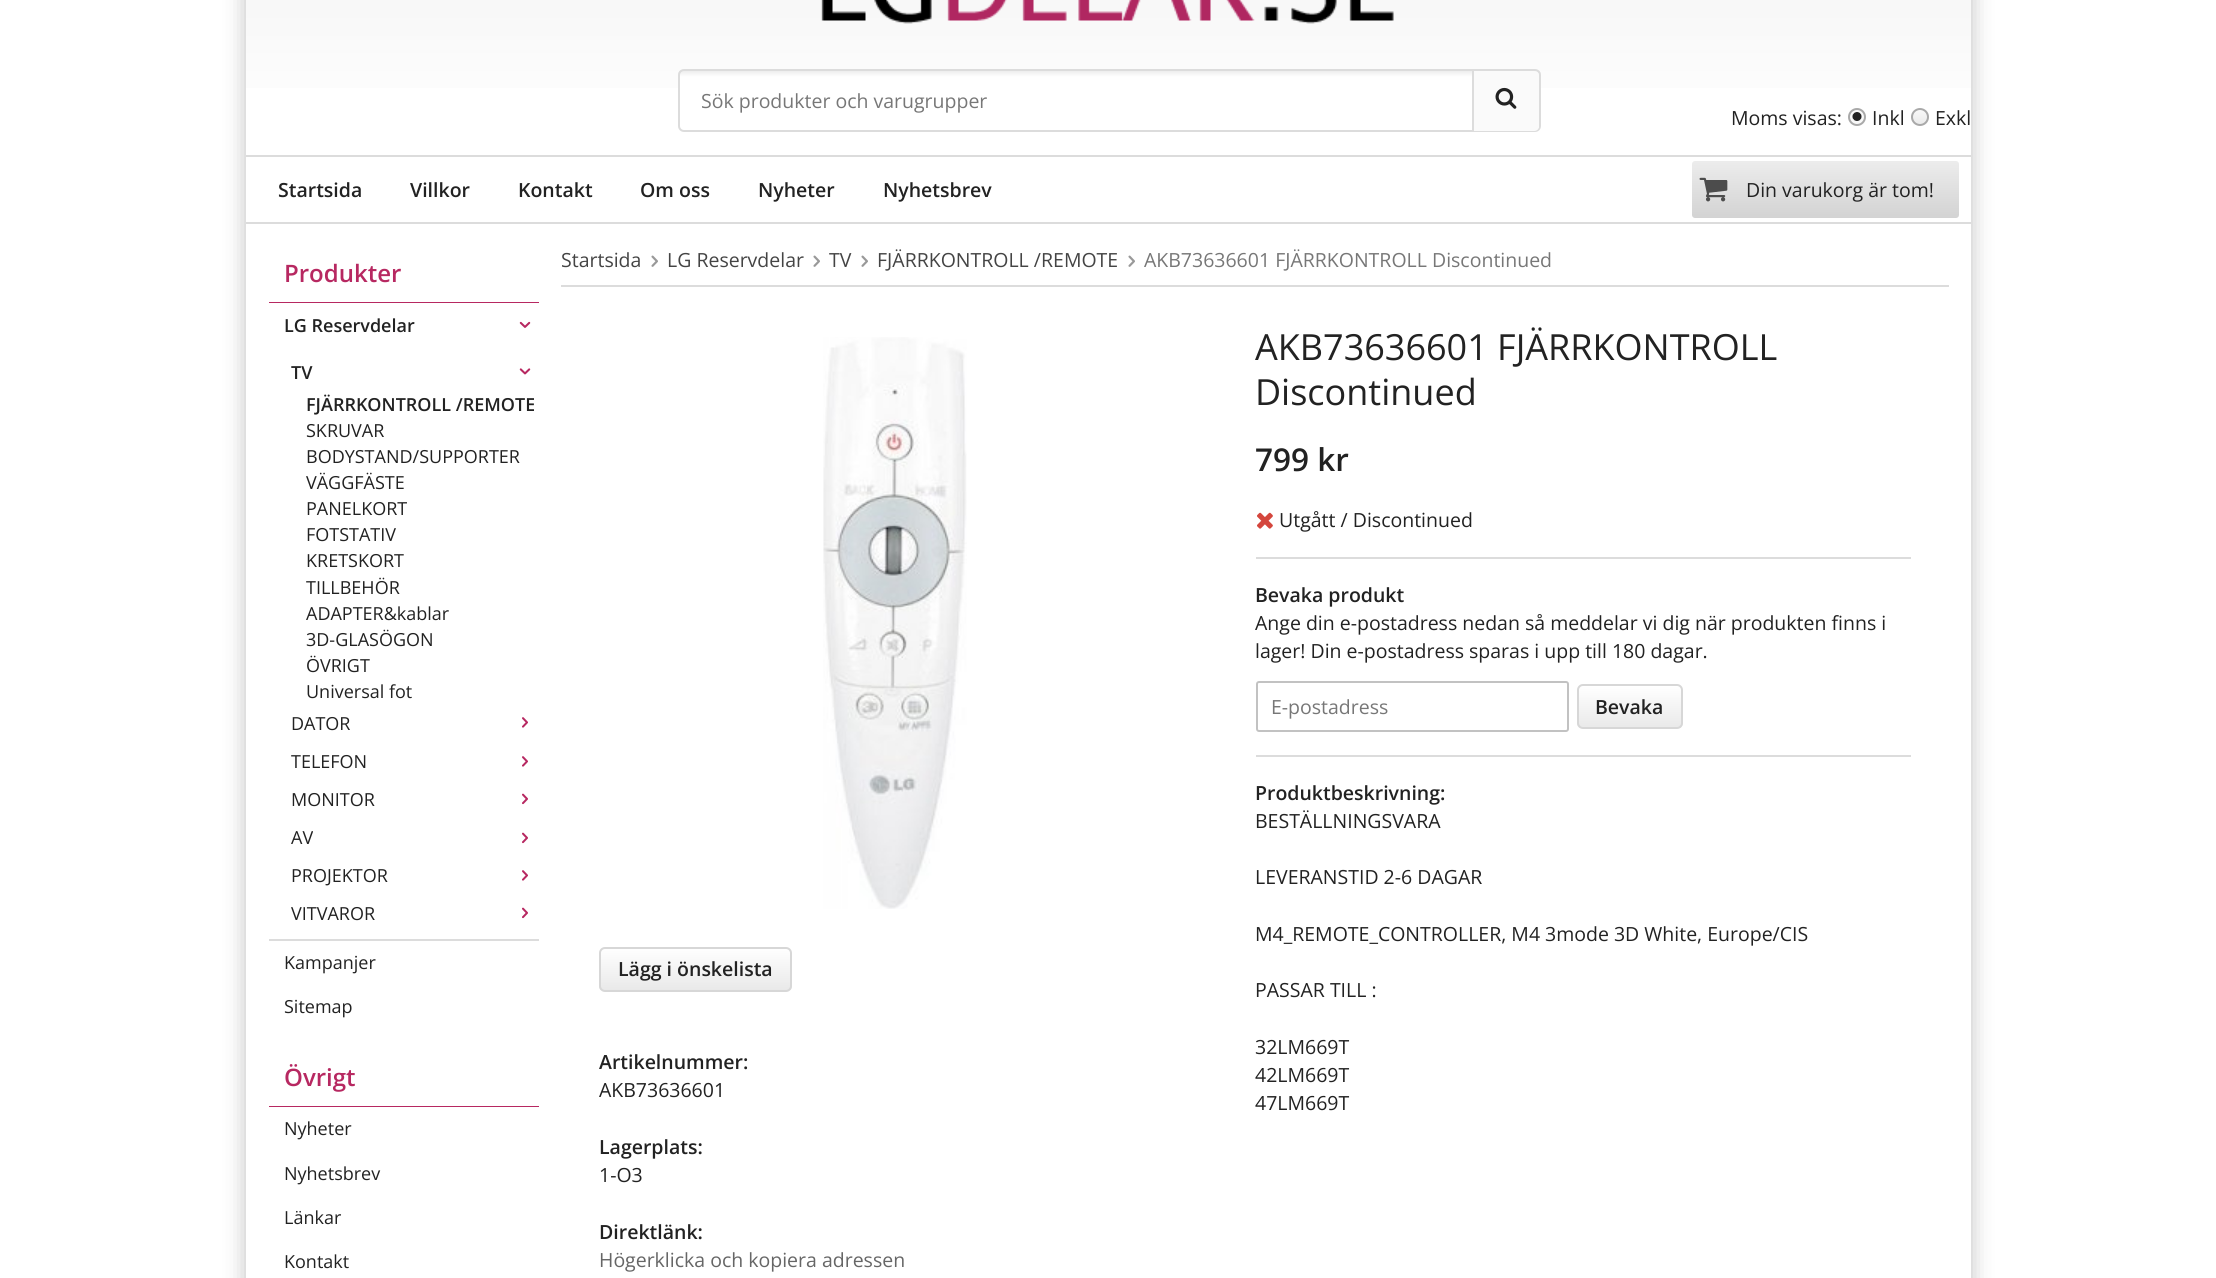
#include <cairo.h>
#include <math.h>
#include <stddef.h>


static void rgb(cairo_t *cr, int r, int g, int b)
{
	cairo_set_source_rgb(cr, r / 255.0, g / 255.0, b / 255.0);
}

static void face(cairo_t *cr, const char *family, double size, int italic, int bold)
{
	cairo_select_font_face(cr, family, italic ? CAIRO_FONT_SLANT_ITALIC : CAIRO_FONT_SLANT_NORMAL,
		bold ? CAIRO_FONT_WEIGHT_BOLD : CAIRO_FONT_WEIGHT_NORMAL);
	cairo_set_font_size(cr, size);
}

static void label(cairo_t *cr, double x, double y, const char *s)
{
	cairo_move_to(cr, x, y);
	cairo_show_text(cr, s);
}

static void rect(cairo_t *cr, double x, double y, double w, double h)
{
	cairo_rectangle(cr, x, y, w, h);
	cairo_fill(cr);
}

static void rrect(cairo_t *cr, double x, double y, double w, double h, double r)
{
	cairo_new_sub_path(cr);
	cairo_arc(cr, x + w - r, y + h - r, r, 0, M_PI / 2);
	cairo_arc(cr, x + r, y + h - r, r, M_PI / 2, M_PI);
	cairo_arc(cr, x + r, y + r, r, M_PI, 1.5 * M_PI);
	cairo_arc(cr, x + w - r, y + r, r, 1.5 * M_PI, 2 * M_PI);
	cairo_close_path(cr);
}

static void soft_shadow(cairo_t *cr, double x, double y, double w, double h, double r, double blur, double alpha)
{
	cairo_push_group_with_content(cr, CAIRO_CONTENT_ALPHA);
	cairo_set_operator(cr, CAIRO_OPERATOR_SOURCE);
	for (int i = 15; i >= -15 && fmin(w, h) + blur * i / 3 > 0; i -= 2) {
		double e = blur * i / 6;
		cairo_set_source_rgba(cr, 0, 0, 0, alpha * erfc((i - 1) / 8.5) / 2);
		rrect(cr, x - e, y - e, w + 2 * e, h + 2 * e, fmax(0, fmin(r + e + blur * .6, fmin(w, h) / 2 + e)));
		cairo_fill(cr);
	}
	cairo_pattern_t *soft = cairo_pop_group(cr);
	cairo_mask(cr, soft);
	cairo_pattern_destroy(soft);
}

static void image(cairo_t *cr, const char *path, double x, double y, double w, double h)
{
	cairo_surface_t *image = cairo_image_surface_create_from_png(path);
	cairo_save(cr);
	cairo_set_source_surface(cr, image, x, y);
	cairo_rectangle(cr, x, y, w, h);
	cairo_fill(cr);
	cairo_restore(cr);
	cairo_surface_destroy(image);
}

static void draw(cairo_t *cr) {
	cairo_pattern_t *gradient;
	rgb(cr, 255, 255, 255);
	cairo_paint(cr);
	cairo_save(cr);
	cairo_set_fill_rule(cr, CAIRO_FILL_RULE_EVEN_ODD);
	cairo_new_path(cr);
	cairo_move_to(cr, 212, 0);
	cairo_line_to(cr, 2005, 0);
	cairo_line_to(cr, 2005, 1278);
	cairo_line_to(cr, 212, 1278);
	cairo_close_path(cr);
	cairo_move_to(cr, 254, -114);
	cairo_line_to(cr, 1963, -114);
	cairo_curve_to(cr, 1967.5, -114, 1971, -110.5, 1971, -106);
	cairo_line_to(cr, 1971, 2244);
	cairo_curve_to(cr, 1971, 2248.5, 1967.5, 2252, 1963, 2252);
	cairo_line_to(cr, 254, 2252);
	cairo_curve_to(cr, 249.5, 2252, 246, 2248.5, 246, 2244);
	cairo_line_to(cr, 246, -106);
	cairo_curve_to(cr, 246, -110.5, 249.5, -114, 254, -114);
	cairo_close_path(cr);
	cairo_clip(cr);
	rgb(cr, 0, 0, 0);
	soft_shadow(cr, 246, -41, 1725, 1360, 8, 11, 0.25);
	cairo_restore(cr);
	gradient = cairo_pattern_create_linear(1109, -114, 1109, 132);
	cairo_pattern_add_color_stop_rgba(gradient, 0, 0.945, 0.945, 0.945, 1);
	cairo_pattern_add_color_stop_rgba(gradient, 1, 1, 1, 1, 1);
	cairo_set_source(cr, gradient);
	cairo_pattern_destroy(gradient);
	rect(cr, 246, 0, 1725, 88);
	image(cr, "image0.png", 821, 0, 573, 24);
	cairo_save(cr);
	rrect(cr, 678, 69, 863, 63, 6);
	cairo_clip(cr);
	gradient = cairo_pattern_create_linear(1109, 131, 1109, 71);
	cairo_pattern_add_color_stop_rgba(gradient, 0.9, 1, 1, 1, 1);
	cairo_pattern_add_color_stop_rgba(gradient, 1, 0.933, 0.933, 0.933, 1);
	cairo_set_source(cr, gradient);
	cairo_pattern_destroy(gradient);
	rect(cr, 678, 71, 863, 60);
	cairo_restore(cr);
	rrect(cr, 679, 70, 861, 61, 5);
	rgb(cr, 220, 220, 220);
	cairo_stroke(cr);
	face(cr, "Open Sans", 19.5, 0, 0);
	rgb(cr, 119, 119, 119);
	label(cr, 701, 108, "Sök produkter och varugrupper");
	rgb(cr, 250, 250, 250);
	cairo_new_path(cr);
	cairo_move_to(cr, 1472, 71);
	cairo_line_to(cr, 1534, 71);
	cairo_curve_to(cr, 1537, 71, 1539, 73, 1539, 76);
	cairo_line_to(cr, 1539, 126);
	cairo_curve_to(cr, 1539, 129, 1537, 131, 1534, 131);
	cairo_line_to(cr, 1472, 131);
	cairo_close_path(cr);
	cairo_fill(cr);
	rgb(cr, 220, 220, 220);
	rect(cr, 1472, 71, 2, 60);
	image(cr, "image1.png", 1495, 87, 22, 22);
	rgb(cr, 34, 34, 34);
	label(cr, 1731, 125, "Moms visas:");
	rgb(cr, 249, 249, 249);
	cairo_new_path(cr);
	cairo_arc(cr, 1857, 117, 9, 0, 2 * M_PI);
	cairo_fill(cr);
	image(cr, "image2.png", 1852, 112, 10, 9);
	cairo_arc(cr, 1857, 117, 8, 0, 2 * M_PI);
	rgb(cr, 169, 169, 169);
	cairo_stroke(cr);
	rgb(cr, 34, 34, 34);
	label(cr, 1872, 125, "Inkl");
	cairo_save(cr);
	rrect(cr, 1911, 108, 18, 18, 9);
	cairo_clip(cr);
	gradient = cairo_pattern_create_linear(1920, 110, 1920, 125);
	cairo_pattern_add_color_stop_rgba(gradient, 0, 0.976, 0.976, 0.976, 1);
	cairo_pattern_add_color_stop_rgba(gradient, 1, 0.914, 0.914, 0.914, 1);
	cairo_set_source(cr, gradient);
	cairo_pattern_destroy(gradient);
	rect(cr, 1911, 110, 18, 15);
	cairo_restore(cr);
	cairo_arc(cr, 1920, 117, 8, 0, 2 * M_PI);
	rgb(cr, 169, 169, 169);
	cairo_stroke(cr);
	rgb(cr, 34, 34, 34);
	label(cr, 1935, 125, "Exkl");
	rgb(cr, 220, 220, 220);
	rect(cr, 246, 155, 1725, 2);
	rect(cr, 246, 222, 1725, 2);
	face(cr, "Open Sans SemiBold", 19.5, 0, 0);
	rgb(cr, 34, 34, 34);
	label(cr, 278, 197, "Startsida");
	label(cr, 410, 197, "Villkor");
	label(cr, 518, 197, "Kontakt");
	label(cr, 640, 197, "Om oss");
	label(cr, 758, 197, "Nyheter");
	label(cr, 883, 197, "Nyhetsbrev");
	gradient = cairo_pattern_create_linear(1826, 160, 1826, 218);
	cairo_pattern_add_color_stop_rgba(gradient, 0, 0.929, 0.929, 0.929, 1);
	cairo_pattern_add_color_stop_rgba(gradient, 1, 0.827, 0.827, 0.827, 1);
	cairo_set_source(cr, gradient);
	cairo_pattern_destroy(gradient);
	rrect(cr, 1692, 161, 267, 57, 3);
	cairo_fill(cr);
	image(cr, "image3.png", 1699, 177, 29, 25);
	face(cr, "Open Sans", 19.5, 0, 0);
	rgb(cr, 34, 34, 34);
	label(cr, 1746, 197, "Din varukorg är tom!");
	rgb(cr, 183, 40, 97);
	rect(cr, 269, 302, 270, 1);
	face(cr, "Open Sans SemiBold", 24, 0, 0);
	label(cr, 284, 282, "Produkter");
	face(cr, "Open Sans SemiBold", 18, 0, 0);
	rgb(cr, 34, 34, 34);
	label(cr, 284, 332, "LG Reservdelar");
	image(cr, "image4.png", 519, 321, 12, 7);
	rgb(cr, 220, 220, 220);
	rect(cr, 269, 939, 270, 2);
	rgb(cr, 34, 34, 34);
	label(cr, 291, 379, "TV");
	image(cr, "image5.png", 519, 368, 12, 7);
	label(cr, 306, 411, "FJÄRRKONTROLL /REMOTE");
	face(cr, "Open Sans", 18, 0, 0);
	label(cr, 306, 437, "SKRUVAR");
	label(cr, 306, 463, "BODYSTAND/SUPPORTER");
	label(cr, 306, 489, "VÄGGFÄSTE");
	label(cr, 306, 515, "PANELKORT");
	label(cr, 306, 541, "FOTSTATIV");
	label(cr, 306, 567, "KRETSKORT");
	label(cr, 306, 594, "TILLBEHÖR");
	label(cr, 306, 620, "ADAPTER&kablar");
	label(cr, 306, 646, "3D-GLASÖGON");
	label(cr, 306, 672, "ÖVRIGT");
	label(cr, 306, 698, "Universal fot");
	label(cr, 291, 730, "DATOR");
	image(cr, "image6.png", 522, 717, 6, 11);
	label(cr, 291, 768, "TELEFON");
	image(cr, "image6.png", 522, 756, 6, 11);
	label(cr, 291, 806, "MONITOR");
	image(cr, "image7.png", 522, 793, 6, 12);
	label(cr, 291, 844, "AV");
	image(cr, "image7.png", 522, 832, 6, 12);
	label(cr, 291, 882, "PROJEKTOR");
	image(cr, "image6.png", 522, 870, 6, 11);
	label(cr, 291, 920, "VITVAROR");
	image(cr, "image7.png", 522, 907, 6, 12);
	label(cr, 284, 969, "Kampanjer");
	label(cr, 284, 1013, "Sitemap");
	rgb(cr, 183, 40, 97);
	rect(cr, 269, 1106, 270, 1);
	face(cr, "Open Sans SemiBold", 24, 0, 0);
	label(cr, 284, 1086, "Övrigt");
	face(cr, "Open Sans", 18, 0, 0);
	rgb(cr, 34, 34, 34);
	label(cr, 284, 1135, "Nyheter");
	label(cr, 284, 1180, "Nyhetsbrev");
	label(cr, 284, 1224, "Länkar");
	label(cr, 284, 1268, "Kontakt");
	rgb(cr, 220, 220, 220);
	rect(cr, 561, 285, 1388, 2);
	face(cr, "Open Sans", 19.5, 0, 0);
	rgb(cr, 68, 68, 68);
	label(cr, 561, 267, "Startsida");
	image(cr, "image8.png", 651, 255, 7, 12);
	label(cr, 667, 267, "LG Reservdelar");
	image(cr, "image8.png", 813, 255, 7, 12);
	label(cr, 829, 267, "TV");
	image(cr, "image8.png", 861, 255, 7, 12);
	label(cr, 877, 267, "FJÄRRKONTROLL /REMOTE");
	image(cr, "image8.png", 1128, 255, 7, 12);
	rgb(cr, 119, 119, 119);
	label(cr, 1144, 267, "AKB73636601 FJÄRRKONTROLL Discontinued");
	image(cr, "image9.png", 823, 337, 144, 572);
	face(cr, "Open Sans", 36, 0, 0);
	rgb(cr, 34, 34, 34);
	label(cr, 1255, 360, "AKB73636601 FJÄRRKONTROLL");
	label(cr, 1255, 405, "Discontinued");
	face(cr, "Open Sans SemiBold", 31.5, 0, 0);
	label(cr, 1255, 471, "799 kr");
	image(cr, "image10.png", 1257, 512, 16, 17);
	face(cr, "Open Sans", 19.5, 0, 0);
	label(cr, 1279, 527, "Utgått / Discontinued");
	rgb(cr, 220, 220, 220);
	rect(cr, 1256, 557, 655, 2);
	rect(cr, 1256, 755, 655, 2);
	face(cr, "Open Sans SemiBold", 19.5, 0, 0);
	rgb(cr, 34, 34, 34);
	label(cr, 1255, 602, "Bevaka produkt");
	face(cr, "Open Sans", 19.5, 0, 0);
	label(cr, 1255, 630, "Ange din e-postadress nedan så meddelar vi dig när produkten finns i");
	label(cr, 1255, 658, "lager! Din e-postadress sparas i upp till 180 dagar.");
	rrect(cr, 1257, 682, 311, 49, 2);
	rgb(cr, 194, 194, 194);
	cairo_stroke(cr);
	rgb(cr, 119, 119, 119);
	label(cr, 1271, 714, "E-postadress");
	cairo_save(cr);
	rrect(cr, 1577, 684, 106, 45, 6);
	cairo_clip(cr);
	gradient = cairo_pattern_create_linear(1630, 686, 1630, 728);
	cairo_pattern_add_color_stop_rgba(gradient, 0, 1, 1, 1, 1);
	cairo_pattern_add_color_stop_rgba(gradient, 1, 0.914, 0.914, 0.914, 1);
	cairo_set_source(cr, gradient);
	cairo_pattern_destroy(gradient);
	rect(cr, 1577, 686, 106, 42);
	cairo_restore(cr);
	rrect(cr, 1578, 685, 104, 43, 5);
	rgb(cr, 215, 215, 215);
	cairo_stroke(cr);
	face(cr, "Open Sans SemiBold", 19.5, 0, 0);
	rgb(cr, 34, 34, 34);
	label(cr, 1595, 714, "Bevaka");
	label(cr, 1255, 800, "Produktbeskrivning:");
	face(cr, "Open Sans", 19.5, 0, 0);
	label(cr, 1255, 828, "BESTÄLLNINGSVARA");
	label(cr, 1255, 884, "LEVERANSTID 2-6 DAGAR");
	label(cr, 1255, 941, "M4_REMOTE_CONTROLLER, M4 3mode 3D White, Europe/CIS");
	label(cr, 1255, 997, "PASSAR TILL :");
	label(cr, 1255, 1054, "32LM669T");
	label(cr, 1255, 1082, "42LM669T");
	label(cr, 1255, 1110, "47LM669T");
	cairo_save(cr);
	rrect(cr, 599, 947, 193, 45, 6);
	cairo_clip(cr);
	gradient = cairo_pattern_create_linear(695, 948, 695, 990);
	cairo_pattern_add_color_stop_rgba(gradient, 0, 1, 1, 1, 1);
	cairo_pattern_add_color_stop_rgba(gradient, 1, 0.914, 0.914, 0.914, 1);
	cairo_set_source(cr, gradient);
	cairo_pattern_destroy(gradient);
	rect(cr, 599, 948, 193, 42);
	cairo_restore(cr);
	rrect(cr, 600, 948, 191, 43, 5);
	rgb(cr, 215, 215, 215);
	cairo_stroke(cr);
	face(cr, "Open Sans SemiBold", 19.5, 0, 0);
	rgb(cr, 34, 34, 34);
	label(cr, 618, 976, "Lägg i önskelista");
	label(cr, 599, 1069, "Artikelnummer:");
	face(cr, "Open Sans", 19.5, 0, 0);
	label(cr, 599, 1097, "AKB73636601");
	face(cr, "Open Sans SemiBold", 19.5, 0, 0);
	label(cr, 599, 1154, "Lagerplats:");
	face(cr, "Open Sans", 19.5, 0, 0);
	label(cr, 599, 1182, "1-O3");
	face(cr, "Open Sans SemiBold", 19.5, 0, 0);
	label(cr, 599, 1239, "Direktlänk:");
	face(cr, "Open Sans", 19.5, 0, 0);
	rgb(cr, 102, 102, 102);
	label(cr, 599, 1267, "Högerklicka och kopiera adressen");
}

int main(void) {
	cairo_surface_t *surface = cairo_image_surface_create(CAIRO_FORMAT_RGB24, 2216, 1278);
	cairo_t *cr = cairo_create(surface);
	cairo_font_options_t *options = cairo_font_options_create();
	cairo_font_options_set_hint_metrics(options, CAIRO_HINT_METRICS_OFF);
	cairo_font_options_set_hint_style(options, CAIRO_HINT_STYLE_NONE);
	cairo_set_font_options(cr, options);
	cairo_set_miter_limit(cr, 4);
	draw(cr);
	cairo_surface_write_to_png(surface, "render.png");
	cairo_font_options_destroy(options);
	cairo_destroy(cr);
	cairo_surface_destroy(surface);
	return 0;
}
